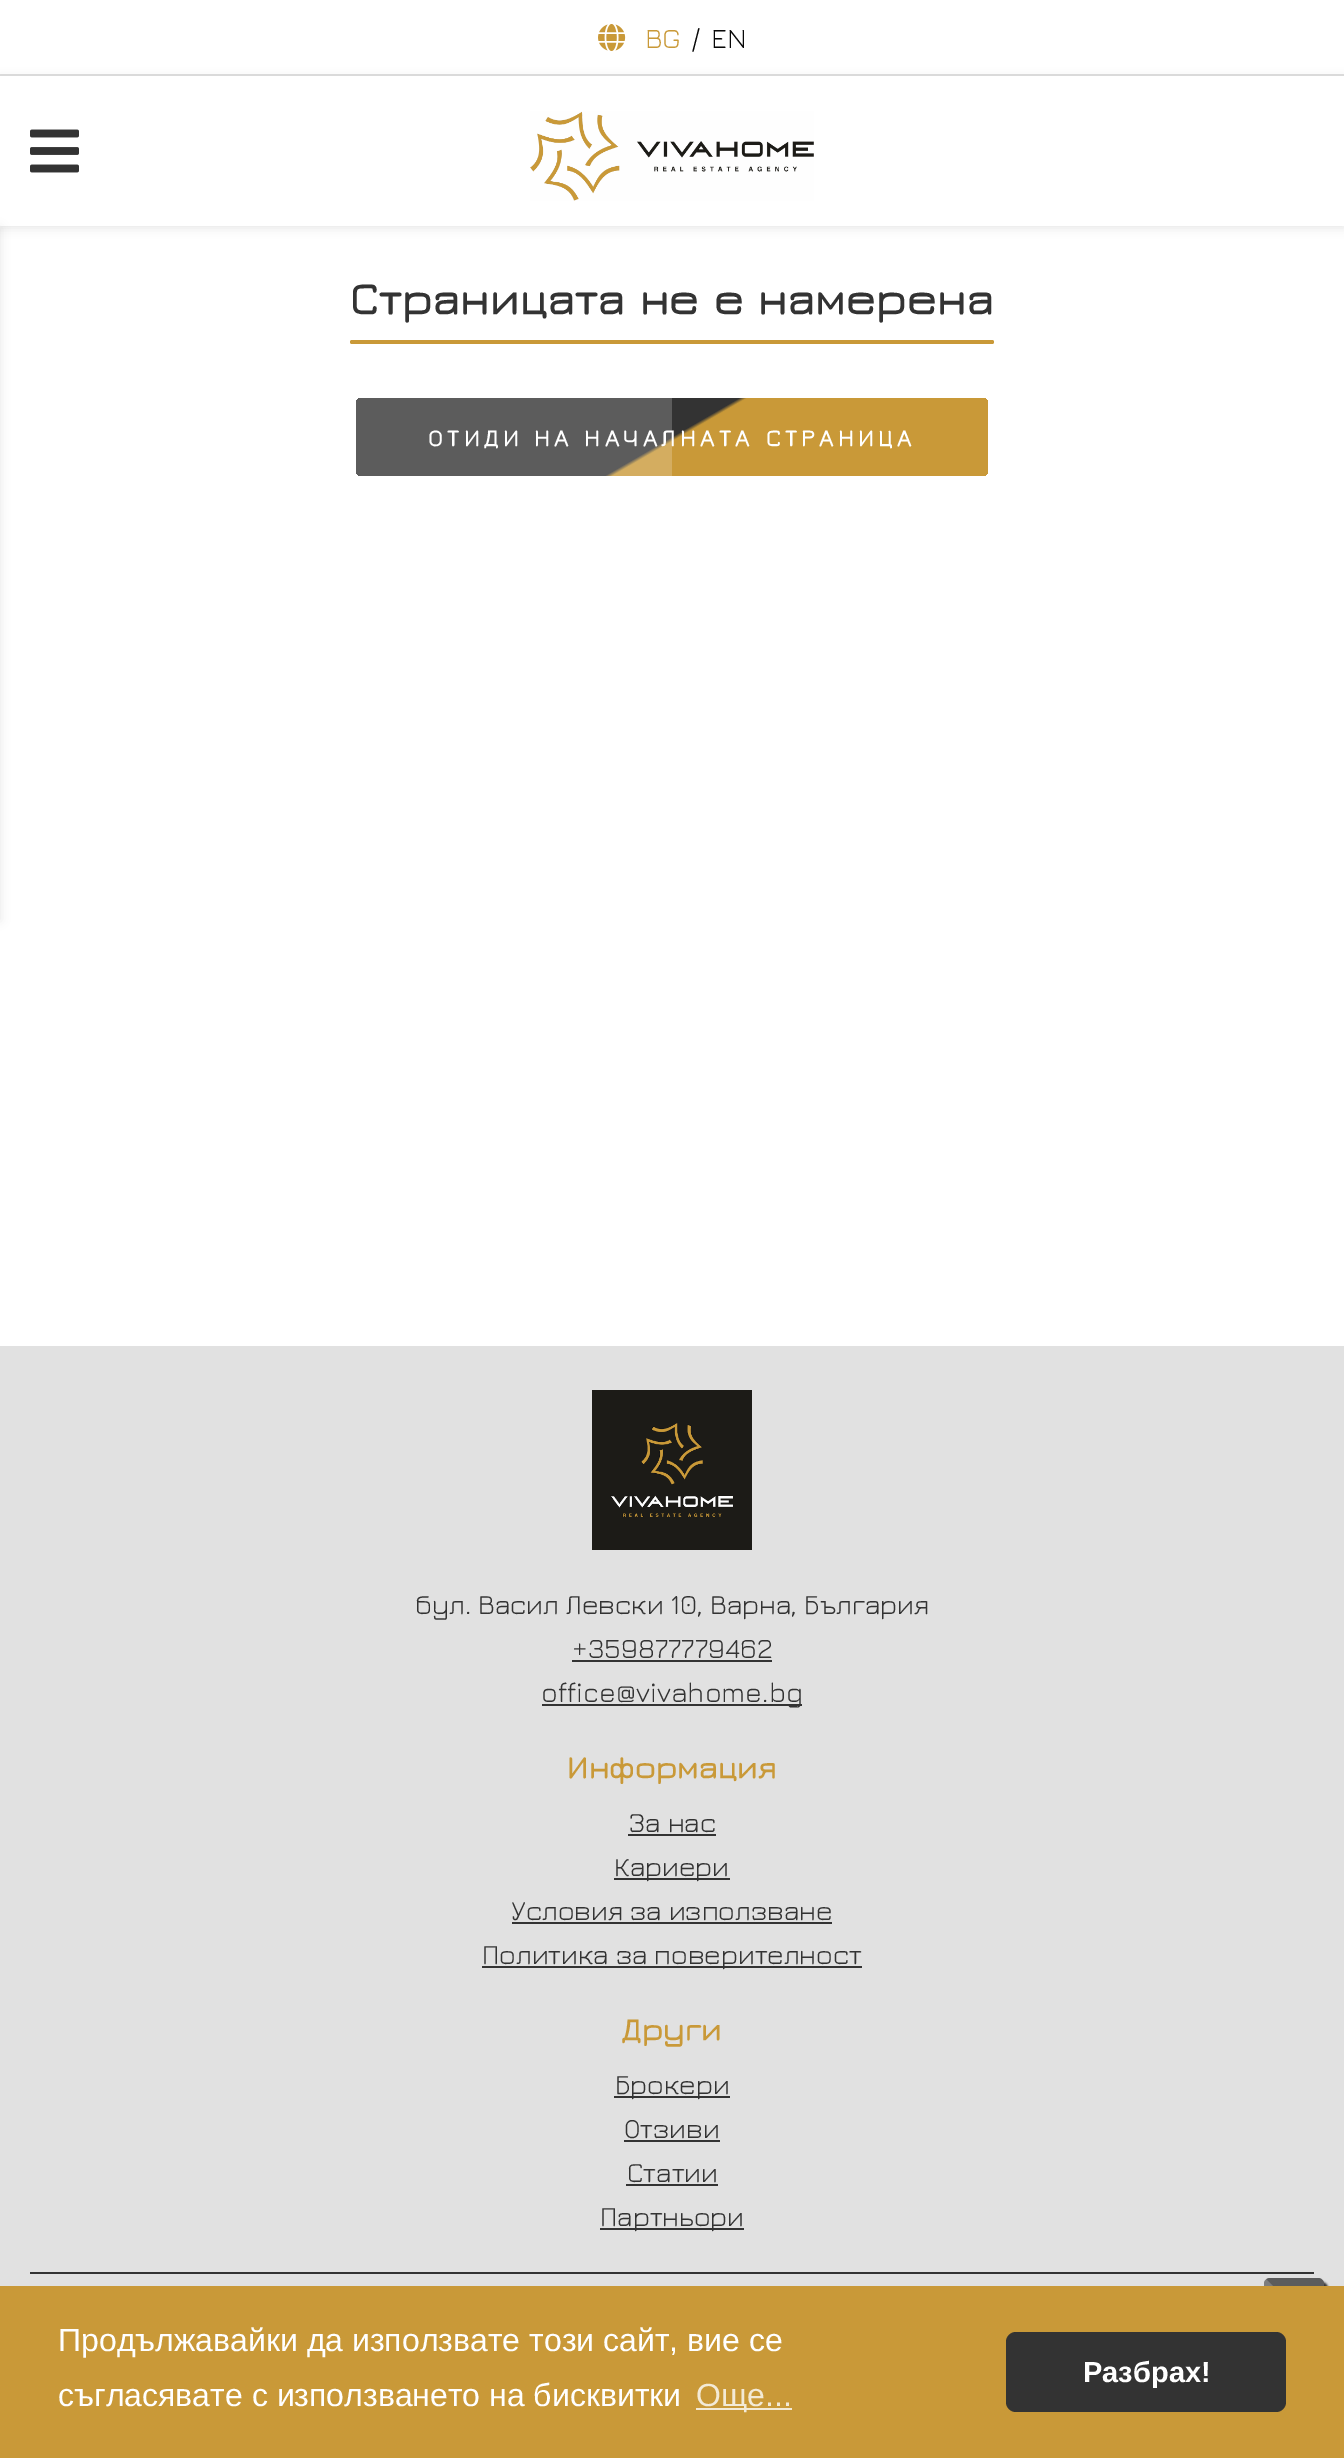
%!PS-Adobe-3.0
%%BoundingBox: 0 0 1344 2458
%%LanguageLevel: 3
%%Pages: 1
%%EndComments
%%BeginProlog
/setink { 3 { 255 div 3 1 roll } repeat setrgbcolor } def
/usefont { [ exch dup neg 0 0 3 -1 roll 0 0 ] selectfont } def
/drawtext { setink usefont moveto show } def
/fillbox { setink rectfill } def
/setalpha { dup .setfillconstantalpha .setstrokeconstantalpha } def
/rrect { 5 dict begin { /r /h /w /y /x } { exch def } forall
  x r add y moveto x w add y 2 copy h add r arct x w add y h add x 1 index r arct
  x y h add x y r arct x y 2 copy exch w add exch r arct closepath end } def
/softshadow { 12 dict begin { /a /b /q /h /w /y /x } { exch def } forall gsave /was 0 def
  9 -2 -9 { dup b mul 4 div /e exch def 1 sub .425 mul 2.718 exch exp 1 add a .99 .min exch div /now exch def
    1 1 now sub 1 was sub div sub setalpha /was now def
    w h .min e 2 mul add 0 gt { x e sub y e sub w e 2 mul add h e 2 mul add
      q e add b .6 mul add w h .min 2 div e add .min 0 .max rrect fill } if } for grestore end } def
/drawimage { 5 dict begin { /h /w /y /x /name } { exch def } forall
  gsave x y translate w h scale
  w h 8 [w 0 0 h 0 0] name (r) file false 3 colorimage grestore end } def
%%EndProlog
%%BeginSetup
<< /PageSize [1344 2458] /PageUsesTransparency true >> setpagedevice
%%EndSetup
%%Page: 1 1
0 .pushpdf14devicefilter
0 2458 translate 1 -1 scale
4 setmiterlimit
0 0 1344 2458 255 255 255 fillbox
0 74 1344 2 225 225 225 fillbox
(assets/img1.rgb) 598 24 28 27 drawimage
(BG) 645 48 /Jura-Regular 28 201 153 56 drawtext
(/) 691 48 /Jura-Regular 28 8 8 8 drawtext
(EN) 711 48 /Jura-Regular 28 8 8 8 drawtext
gsave
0 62 moveto 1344 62 lineto 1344 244 lineto 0 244 lineto closepath 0 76 moveto 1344 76 lineto 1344 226 lineto 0 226 lineto closepath eoclip newpath
0 0 0 setink
0 78 1344 150 0 5 0.1 softshadow
grestore
(assets/img2.rgb) 30 129 49 44 drawimage
(assets/img3.rgb) 530 111 284 90 drawimage
0 0 0 setink
-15 228 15 692 0 5 0.1 softshadow
(Страницата не е намерена) 350 314 /Jura-Bold 46 51 51 51 drawtext
201 153 56 setink
350 340 644 4 2 rrect fill
gsave 356 398 632 78 5 rrect clip newpath
<< /ShadingType 2 /ColorSpace /DeviceRGB /Coords [768 603 576 271] /Extend [true true] /Function << /FunctionType 3 /Domain [0 1] /Functions [<< /FunctionType 2 /Domain [0 1] /C0 [0.788 0.6 0.22] /C1 [0.788 0.6 0.22] /N 1 >> << /FunctionType 2 /Domain [0 1] /C0 [0.788 0.6 0.22] /C1 [0.2 0.2 0.2] /N 1 >> << /FunctionType 2 /Domain [0 1] /C0 [0.2 0.2 0.2] /C1 [0.2 0.2 0.2] /N 1 >>] /Bounds [0.49 0.5] /Encode [0 1 0 1 0 1] >> >> shfill grestore
0.2 setalpha
356 398 316 78 255 255 255 fillbox
/Jura-Bold 24 usefont
1 setalpha
428 446 moveto 4 0 (ОТИДИ НА НАЧАЛНАТА СТРАНИЦА) ashow
0 1346 1344 940 225 225 225 fillbox
(assets/img4.rgb) 592 1390 160 160 drawimage
(бул. Васил Левски 10, Варна, България) 415 1614 /Jura-Regular 28 51 51 51 drawtext
(+359877779462) 572 1658 /Jura-Regular 28 51 51 51 drawtext
572 1660 200 2 51 51 51 fillbox
542 1704 260 2 51 51 51 fillbox
(office@vivahome.bg) 541 1702 /Jura-Regular 28 51 51 51 drawtext
(Информация) 567 1778 /Jura-Bold 32 201 153 56 drawtext
(За нас) 629 1832 /Jura-Regular 28 51 51 51 drawtext
628 1834 88 2 51 51 51 fillbox
614 1878 116 2 51 51 51 fillbox
(Кариери) 614 1876 /Jura-Regular 28 51 51 51 drawtext
(Условия за използване) 511 1920 /Jura-Regular 28 51 51 51 drawtext
512 1922 320 2 51 51 51 fillbox
482 1966 380 2 51 51 51 fillbox
(Политика за поверителност) 482 1964 /Jura-Regular 28 51 51 51 drawtext
(Други) 622 2040 /Jura-Bold 32 201 153 56 drawtext
614 2096 116 2 51 51 51 fillbox
(Брокери) 615 2094 /Jura-Regular 28 51 51 51 drawtext
(Отзиви) 624 2138 /Jura-Regular 28 51 51 51 drawtext
624 2140 96 2 51 51 51 fillbox
(Статии) 627 2182 /Jura-Regular 28 51 51 51 drawtext
626 2184 92 2 51 51 51 fillbox
600 2228 144 2 51 51 51 fillbox
(Партньори) 600 2226 /Jura-Regular 28 51 51 51 drawtext
30 2272 1284 2 51 51 51 fillbox
1268 2282 60 60 6 1 1 softshadow
1264 2278 60 60 6 rrect fill
0.2 setalpha
255 255 255 setink
1264 2278 60 60 6 rrect fill
1266 2279 moveto 1323 2336 lineto 1322 2337 1320 2338 1318 2338 curveto 1270 2338 lineto 1267 2338 1264 2335 1264 2332 curveto 1264 2284 lineto 1264 2282 1265 2280 1266 2279 curveto closepath fill
1 setalpha
0 2286 1344 172 201 153 56 fillbox
(Продължавайки да използвате този сайт, вие се) 58 2351 /LiberationSans-Regular 32 255 255 255 drawtext
(съгласявате с използването на бисквитки) 58 2406 /LiberationSans-Regular 32 255 255 255 drawtext
696 2408 96 2 243 234 214 fillbox
(Още...) 696 2406 /LiberationSans-Regular 32 243 234 214 drawtext
51 51 51 setink
1006 2332 280 80 10 rrect fill
(Разбрах!) 1083 2382 /LiberationSans-Bold 29 255 255 255 drawtext
.poppdf14devicefilter showpage
%%EOF
